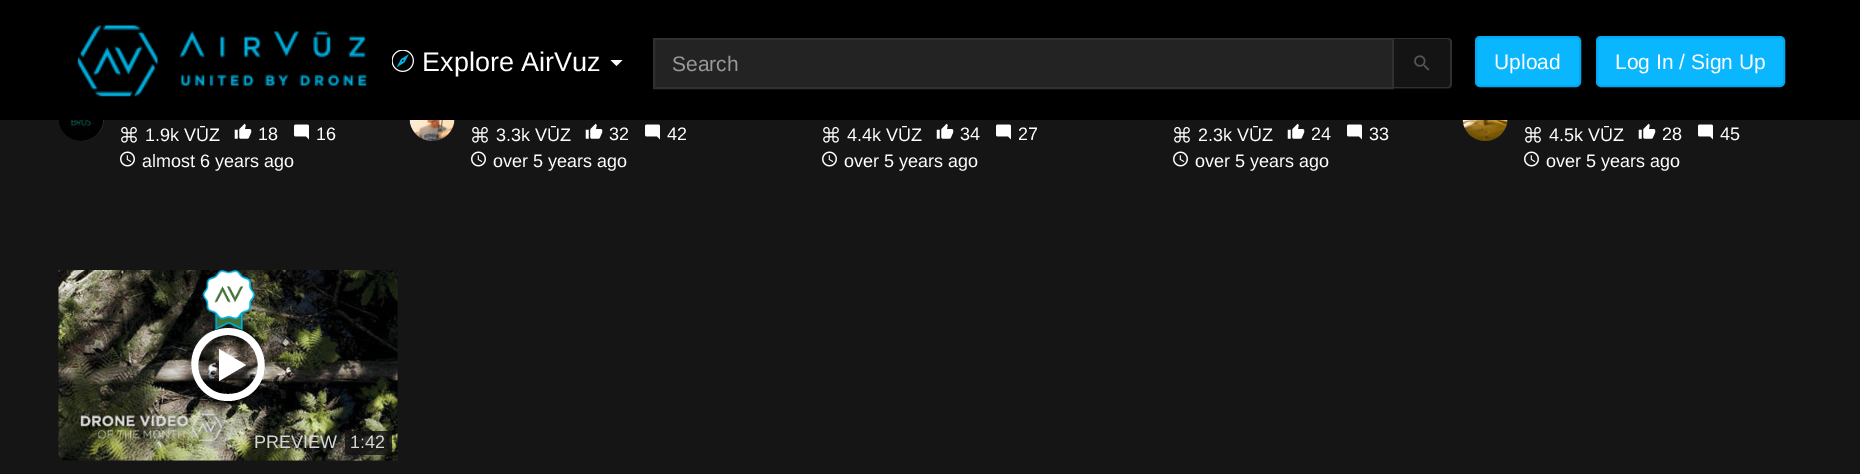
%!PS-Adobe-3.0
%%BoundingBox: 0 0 1860 474
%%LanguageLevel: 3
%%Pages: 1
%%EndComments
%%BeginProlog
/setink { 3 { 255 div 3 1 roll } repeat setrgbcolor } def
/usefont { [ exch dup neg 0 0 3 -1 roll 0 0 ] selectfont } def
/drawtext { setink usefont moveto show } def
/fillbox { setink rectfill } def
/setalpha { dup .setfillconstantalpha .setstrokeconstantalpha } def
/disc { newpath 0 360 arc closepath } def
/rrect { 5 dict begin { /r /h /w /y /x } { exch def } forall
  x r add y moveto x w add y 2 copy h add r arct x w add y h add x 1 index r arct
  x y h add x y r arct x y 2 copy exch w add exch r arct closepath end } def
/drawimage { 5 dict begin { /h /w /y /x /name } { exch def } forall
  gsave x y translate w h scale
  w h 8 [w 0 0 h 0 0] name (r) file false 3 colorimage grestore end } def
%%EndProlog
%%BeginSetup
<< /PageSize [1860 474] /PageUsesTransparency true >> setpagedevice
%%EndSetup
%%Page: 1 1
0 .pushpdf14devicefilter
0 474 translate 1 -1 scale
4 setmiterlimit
0 0 1860 474 21 21 22 fillbox
51 51 51 setink
81.5 118.5 22.5 disc fill
432.5 118.5 22.5 disc fill
1485.5 118.5 22.5 disc fill
0 0 1860 120 0 0 0 fillbox
(assets/img1.rgb) 77 25 290 72 drawimage
(assets/img2.rgb) 392 50 22 22 drawimage
(Explore AirVuz) 422 71 /LiberationSans-Regular 27 255 255 255 drawtext
610.5 60 moveto 622.5 60 lineto 616.5 66 lineto closepath fill
655 41 737 46 35 35 35 fillbox
654 40 738 1 32 32 32 fillbox
48 48 48 setink
2 setlinewidth
654 39 739 49 rectstroke
(Search) 672 71 /LiberationSans-Regular 21 153 153 153 drawtext
20 20 20 setink
1394 38 moveto 1447 38 lineto 1450 38 1452 40 1452 43 curveto 1452 84 lineto 1452 87 1450 89 1447 89 curveto 1394 89 lineto closepath fill
48 48 48 setink
1394 38 moveto 1448 38 lineto 1450 38 1452 40 1452 42 curveto 1452 84 lineto 1452 86 1450 88 1448 88 curveto 1394 88 lineto closepath 1394 39 moveto 1448 39 lineto 1449 39 1450 40 1450 42 curveto 1450 84 lineto 1450 86 1449 87 1448 87 curveto 1394 87 lineto closepath eofill
(assets/img3.rgb) 1414 55 16 16 drawimage
10 183 255 setink
1476 37 104 49 4 rrect gsave fill grestore
0 169 240 setink
stroke
(Upload) 1494 69 /LiberationSans-Regular 21 255 255 255 drawtext
10 183 255 setink
1597 37 187 49 4 rrect gsave fill grestore
0 169 240 setink
stroke
(Log In / Sign Up) 1615 69 /LiberationSans-Regular 21 255 255 255 drawtext
(assets/img4.rgb) 58 120 46 21 drawimage
(assets/img5.rgb) 121 127 16 16 drawimage
(1.9k VŪZ) 145 141 /LiberationSans-Regular 18 255 255 255 drawtext
(assets/img6.rgb) 234 123 18 16 drawimage
(18) 258 140 /LiberationSans-Regular 18 255 255 255 drawtext
(assets/img7.rgb) 294 124 15 16 drawimage
(16) 316 140 /LiberationSans-Regular 18 255 255 255 drawtext
(assets/img8.rgb) 120 151 15 16 drawimage
(almost 6 years ago) 142 167 /LiberationSans-Regular 18 255 255 255 drawtext
(assets/img9.rgb) 409 120 46 21 drawimage
(assets/img5.rgb) 472 127 16 16 drawimage
(3.3k VŪZ) 496 141 /LiberationSans-Regular 18 255 255 255 drawtext
(assets/img6.rgb) 585 123 18 16 drawimage
(32) 609 140 /LiberationSans-Regular 18 255 255 255 drawtext
(assets/img7.rgb) 645 124 15 16 drawimage
(42) 667 140 /LiberationSans-Regular 18 255 255 255 drawtext
(assets/img8.rgb) 471 151 15 16 drawimage
(over 5 years ago) 493 167 /LiberationSans-Regular 18 255 255 255 drawtext
(assets/img5.rgb) 823 127 16 16 drawimage
(4.4k VŪZ) 847 141 /LiberationSans-Regular 18 255 255 255 drawtext
(assets/img6.rgb) 936 123 18 16 drawimage
(34) 960 140 /LiberationSans-Regular 18 255 255 255 drawtext
(assets/img7.rgb) 996 124 15 16 drawimage
(27) 1018 140 /LiberationSans-Regular 18 255 255 255 drawtext
(assets/img8.rgb) 822 151 15 16 drawimage
(over 5 years ago) 844 167 /LiberationSans-Regular 18 255 255 255 drawtext
(assets/img5.rgb) 1174 127 16 16 drawimage
(2.3k VŪZ) 1198 141 /LiberationSans-Regular 18 255 255 255 drawtext
(assets/img6.rgb) 1287 123 18 16 drawimage
(24) 1311 140 /LiberationSans-Regular 18 255 255 255 drawtext
(assets/img7.rgb) 1347 124 15 16 drawimage
(33) 1369 140 /LiberationSans-Regular 18 255 255 255 drawtext
(assets/img8.rgb) 1173 151 15 16 drawimage
(over 5 years ago) 1195 167 /LiberationSans-Regular 18 255 255 255 drawtext
(assets/img10.rgb) 1462 120 46 21 drawimage
(assets/img5.rgb) 1525 127 16 16 drawimage
(4.5k VŪZ) 1549 141 /LiberationSans-Regular 18 255 255 255 drawtext
(assets/img6.rgb) 1638 123 18 16 drawimage
(28) 1662 140 /LiberationSans-Regular 18 255 255 255 drawtext
(assets/img7.rgb) 1698 124 15 16 drawimage
(45) 1720 140 /LiberationSans-Regular 18 255 255 255 drawtext
(assets/img8.rgb) 1524 151 15 16 drawimage
(over 5 years ago) 1546 167 /LiberationSans-Regular 18 255 255 255 drawtext
(assets/img11.rgb) 58 270 340 191 drawimage
228 328 moveto 221 328 214 330 207 334 curveto 178 354 192 401 228 401 curveto 235 401 242 399 249 395 curveto 278 375 264 328 228 328 curveto closepath 228 394 moveto 222 394 216 393 211 389 curveto 187 373 199 335 228 335 curveto 257 335 269 373 245 389 curveto 240 393 234 394 228 394 curveto closepath 219 349 moveto 246 365 lineto 219 381 lineto closepath fill
(assets/img12.rgb) 202 270 53 60 drawimage
(PREVIEW) 254 448 /LiberationSans-Regular 18 214 215 212 drawtext
0.8 setalpha
17 17 17 setink
345 431 47 24 3 rrect fill
1 setalpha
(1:42) 350 448 /LiberationSans-Regular 18 214 215 212 drawtext
.poppdf14devicefilter showpage
%%EOF
